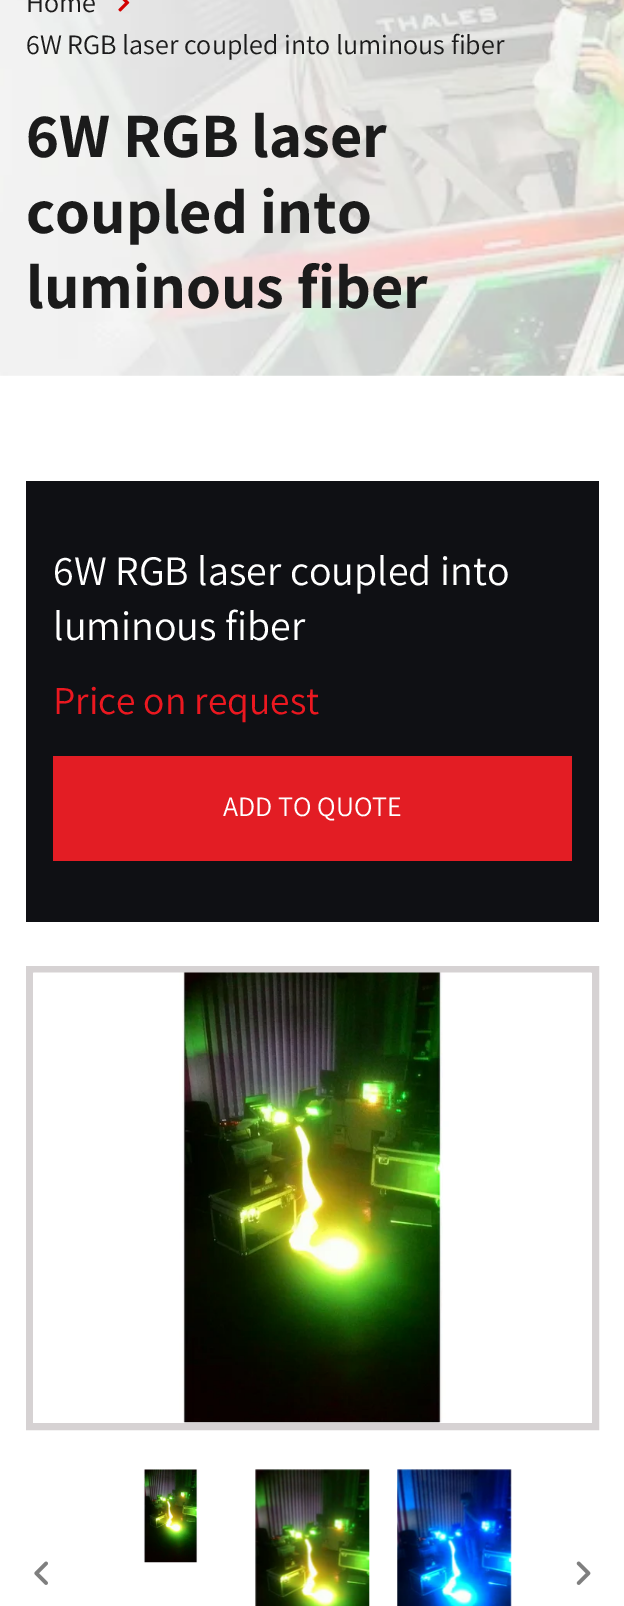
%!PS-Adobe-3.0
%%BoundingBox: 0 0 624 1606
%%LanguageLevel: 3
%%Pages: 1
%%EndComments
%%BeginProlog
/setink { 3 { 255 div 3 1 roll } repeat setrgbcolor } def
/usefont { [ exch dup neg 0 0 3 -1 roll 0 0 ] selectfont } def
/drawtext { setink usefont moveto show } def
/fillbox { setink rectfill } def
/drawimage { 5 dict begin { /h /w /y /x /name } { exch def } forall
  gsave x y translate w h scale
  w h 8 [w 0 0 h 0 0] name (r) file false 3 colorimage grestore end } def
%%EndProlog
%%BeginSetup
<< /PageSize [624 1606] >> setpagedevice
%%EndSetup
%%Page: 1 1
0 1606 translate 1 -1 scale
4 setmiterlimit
0 0 624 1606 255 255 255 fillbox
(assets/img1.rgb) 0 0 624 376 drawimage
(Home) 26 12 /Assistant-Regular 28 27 27 27 drawtext
(assets/img2.rgb) 118 0 12 12 drawimage
(6W RGB laser coupled into luminous fiber) 26 54 /Assistant-Regular 28 27 27 27 drawtext
(6W RGB laser) 26 157 /Assistant-Bold 63 27 27 27 drawtext
(coupled into) 26 233 /Assistant-Bold 63 27 27 27 drawtext
(luminous fiber) 26 308 /Assistant-Bold 63 27 27 27 drawtext
26 481 573 441 15 16 20 fillbox
(6W RGB laser coupled into) 53 585 /Assistant-Regular 42 255 255 255 drawtext
(luminous fiber) 53 640 /Assistant-Regular 42 255 255 255 drawtext
(Price on request) 53 714 /Assistant-Regular 39.5 235 24 32 drawtext
53 756 519 105 227 29 36 fillbox
(ADD TO QUOTE) 223 816 /Assistant-Regular 28 255 255 255 drawtext
214 210 211 setink
7 setlinewidth
29.5 969.5 566 457 rectstroke
(assets/img3.rgb) 33 972 559 451 drawimage
(assets/img4.rgb) 34 1561 14 24 drawimage
(assets/img5.rgb) 143 1469 56 94 drawimage
(assets/img6.rgb) 255 1469 115 137 drawimage
(assets/img7.rgb) 397 1469 115 137 drawimage
(assets/img8.rgb) 576 1561 15 24 drawimage
showpage
%%EOF
